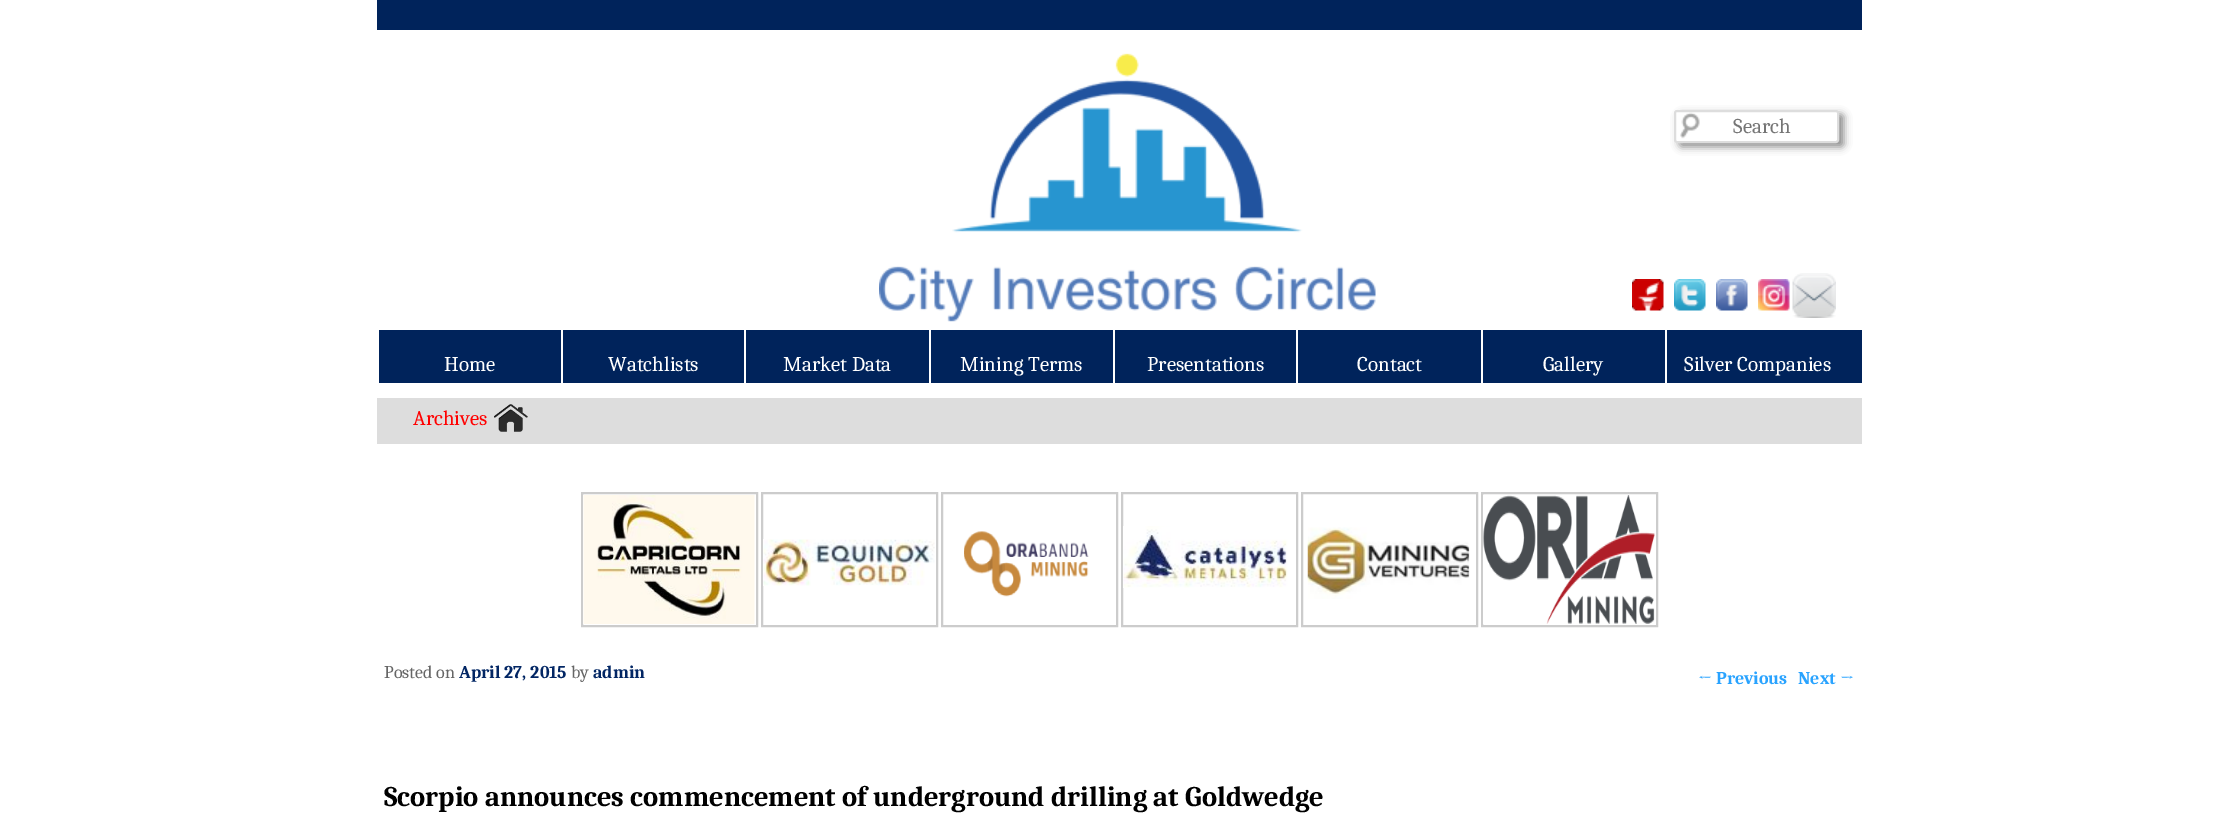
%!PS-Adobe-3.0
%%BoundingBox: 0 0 2237 836
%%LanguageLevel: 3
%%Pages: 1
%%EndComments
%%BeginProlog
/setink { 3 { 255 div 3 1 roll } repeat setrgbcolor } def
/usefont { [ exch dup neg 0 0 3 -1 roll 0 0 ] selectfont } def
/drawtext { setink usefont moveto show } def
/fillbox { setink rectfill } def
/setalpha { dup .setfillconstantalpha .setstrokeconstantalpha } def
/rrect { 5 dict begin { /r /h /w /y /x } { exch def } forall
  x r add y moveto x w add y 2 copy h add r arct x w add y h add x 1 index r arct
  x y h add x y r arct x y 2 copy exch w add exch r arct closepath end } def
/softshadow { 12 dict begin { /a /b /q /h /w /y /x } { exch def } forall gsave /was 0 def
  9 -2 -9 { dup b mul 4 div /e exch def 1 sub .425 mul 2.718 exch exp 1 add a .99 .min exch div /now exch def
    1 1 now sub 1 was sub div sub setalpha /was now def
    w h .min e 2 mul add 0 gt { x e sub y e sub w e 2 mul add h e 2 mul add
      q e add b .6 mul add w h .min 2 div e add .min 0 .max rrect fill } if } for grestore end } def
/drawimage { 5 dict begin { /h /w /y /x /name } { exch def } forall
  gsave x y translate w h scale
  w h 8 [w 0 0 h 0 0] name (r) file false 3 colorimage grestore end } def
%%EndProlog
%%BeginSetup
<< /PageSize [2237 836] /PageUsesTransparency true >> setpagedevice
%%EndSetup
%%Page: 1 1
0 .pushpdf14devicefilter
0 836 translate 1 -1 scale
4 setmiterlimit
0 0 2237 836 255 255 255 fillbox
377 0 1485 30 0 35 91 fillbox
(assets/img1.rgb) 879 53 497 269 drawimage
gsave
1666 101 moveto 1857 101 lineto 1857 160 lineto 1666 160 lineto closepath 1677 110 moveto 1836 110 lineto 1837.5 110 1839 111.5 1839 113 curveto 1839 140 lineto 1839 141.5 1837.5 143 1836 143 curveto 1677 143 lineto 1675.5 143 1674 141.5 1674 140 curveto 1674 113 lineto 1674 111.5 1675.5 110 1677 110 curveto closepath eoclip newpath
140 140 140 setink
1679 114 165 33 3 4 1 softshadow
grestore
(assets/img2.rgb) 1680 112 20 27 drawimage
221 221 221 setink
2 setlinewidth
1675 111 163 31 2 rrect stroke
gsave
1733 114 102 26 rectclip
(Search) 1733 133 /Caladea-Regular 21 117 117 117 drawtext
grestore
(assets/img3.rgb) 1632 279 32 32 drawimage
(assets/img4.rgb) 1674 279 32 32 drawimage
(assets/img5.rgb) 1716 279 32 32 drawimage
(assets/img6.rgb) 1758 279 32 32 drawimage
(assets/img7.rgb) 1792 273 44 45 drawimage
379 330 1483 53 0 35 91 fillbox
(Home) 444 371 /Caladea-Regular 21 255 255 255 drawtext
561 330 2 53 255 255 255 fillbox
(Watchlists) 608 371 /Caladea-Regular 21 255 255 255 drawtext
744 330 2 53 255 255 255 fillbox
(Market Data) 783 371 /Caladea-Regular 21 255 255 255 drawtext
929 330 2 53 255 255 255 fillbox
(Mining Terms) 960 371 /Caladea-Regular 21 255 255 255 drawtext
1113 330 2 53 255 255 255 fillbox
(Presentations) 1147 371 /Caladea-Regular 21 255 255 255 drawtext
1296 330 2 53 255 255 255 fillbox
(Contact) 1357 371 /Caladea-Regular 21 255 255 255 drawtext
1481 330 2 53 255 255 255 fillbox
(Gallery) 1543 371 /Caladea-Regular 21 255 255 255 drawtext
1665 330 2 53 255 255 255 fillbox
(Silver Companies) 1684 371 /Caladea-Regular 21 255 255 255 drawtext
377 398 1485 46 221 221 221 fillbox
(Archives) 413 425 /Caladea-Regular 21 255 0 0 drawtext
(assets/img8.rgb) 494 404 34 28 drawimage
204 204 204 setink
582 493 175 133 rectstroke
(assets/img9.rgb) 583 495 172 129 drawimage
762 493 175 133 rectstroke
(assets/img10.rgb) 763 539 172 47 drawimage
942 493 175 133 rectstroke
(assets/img11.rgb) 964 531 125 66 drawimage
1122 493 175 133 rectstroke
(assets/img12.rgb) 1123 526 165 62 drawimage
1302 493 175 133 rectstroke
(assets/img13.rgb) 1307 527 163 72 drawimage
1482 493 175 133 rectstroke
(assets/img14.rgb) 1483 495 172 129 drawimage
(Posted on) 384 678 /Caladea-Regular 18 102 102 102 drawtext
(April 27, 2015) 459 678 /Caladea-Bold 18 2 38 100 drawtext
(by) 571 678 /Caladea-Regular 18 102 102 102 drawtext
(admin) 593 678 /Caladea-Bold 18 2 38 100 drawtext
(Scorpio announces commencement of underground drilling at Goldwedge) 384 806 /Caladea-Bold 28.5 0 0 0 drawtext
(←) 1698 684 /Caladea-Regular 18 41 163 255 drawtext
(Previous) 1716 684 /Caladea-Bold 18 41 163 255 drawtext
(Next) 1798 684 /Caladea-Bold 18 41 163 255 drawtext
(→) 1840 684 /Caladea-Regular 18 41 163 255 drawtext
.poppdf14devicefilter showpage
%%EOF
